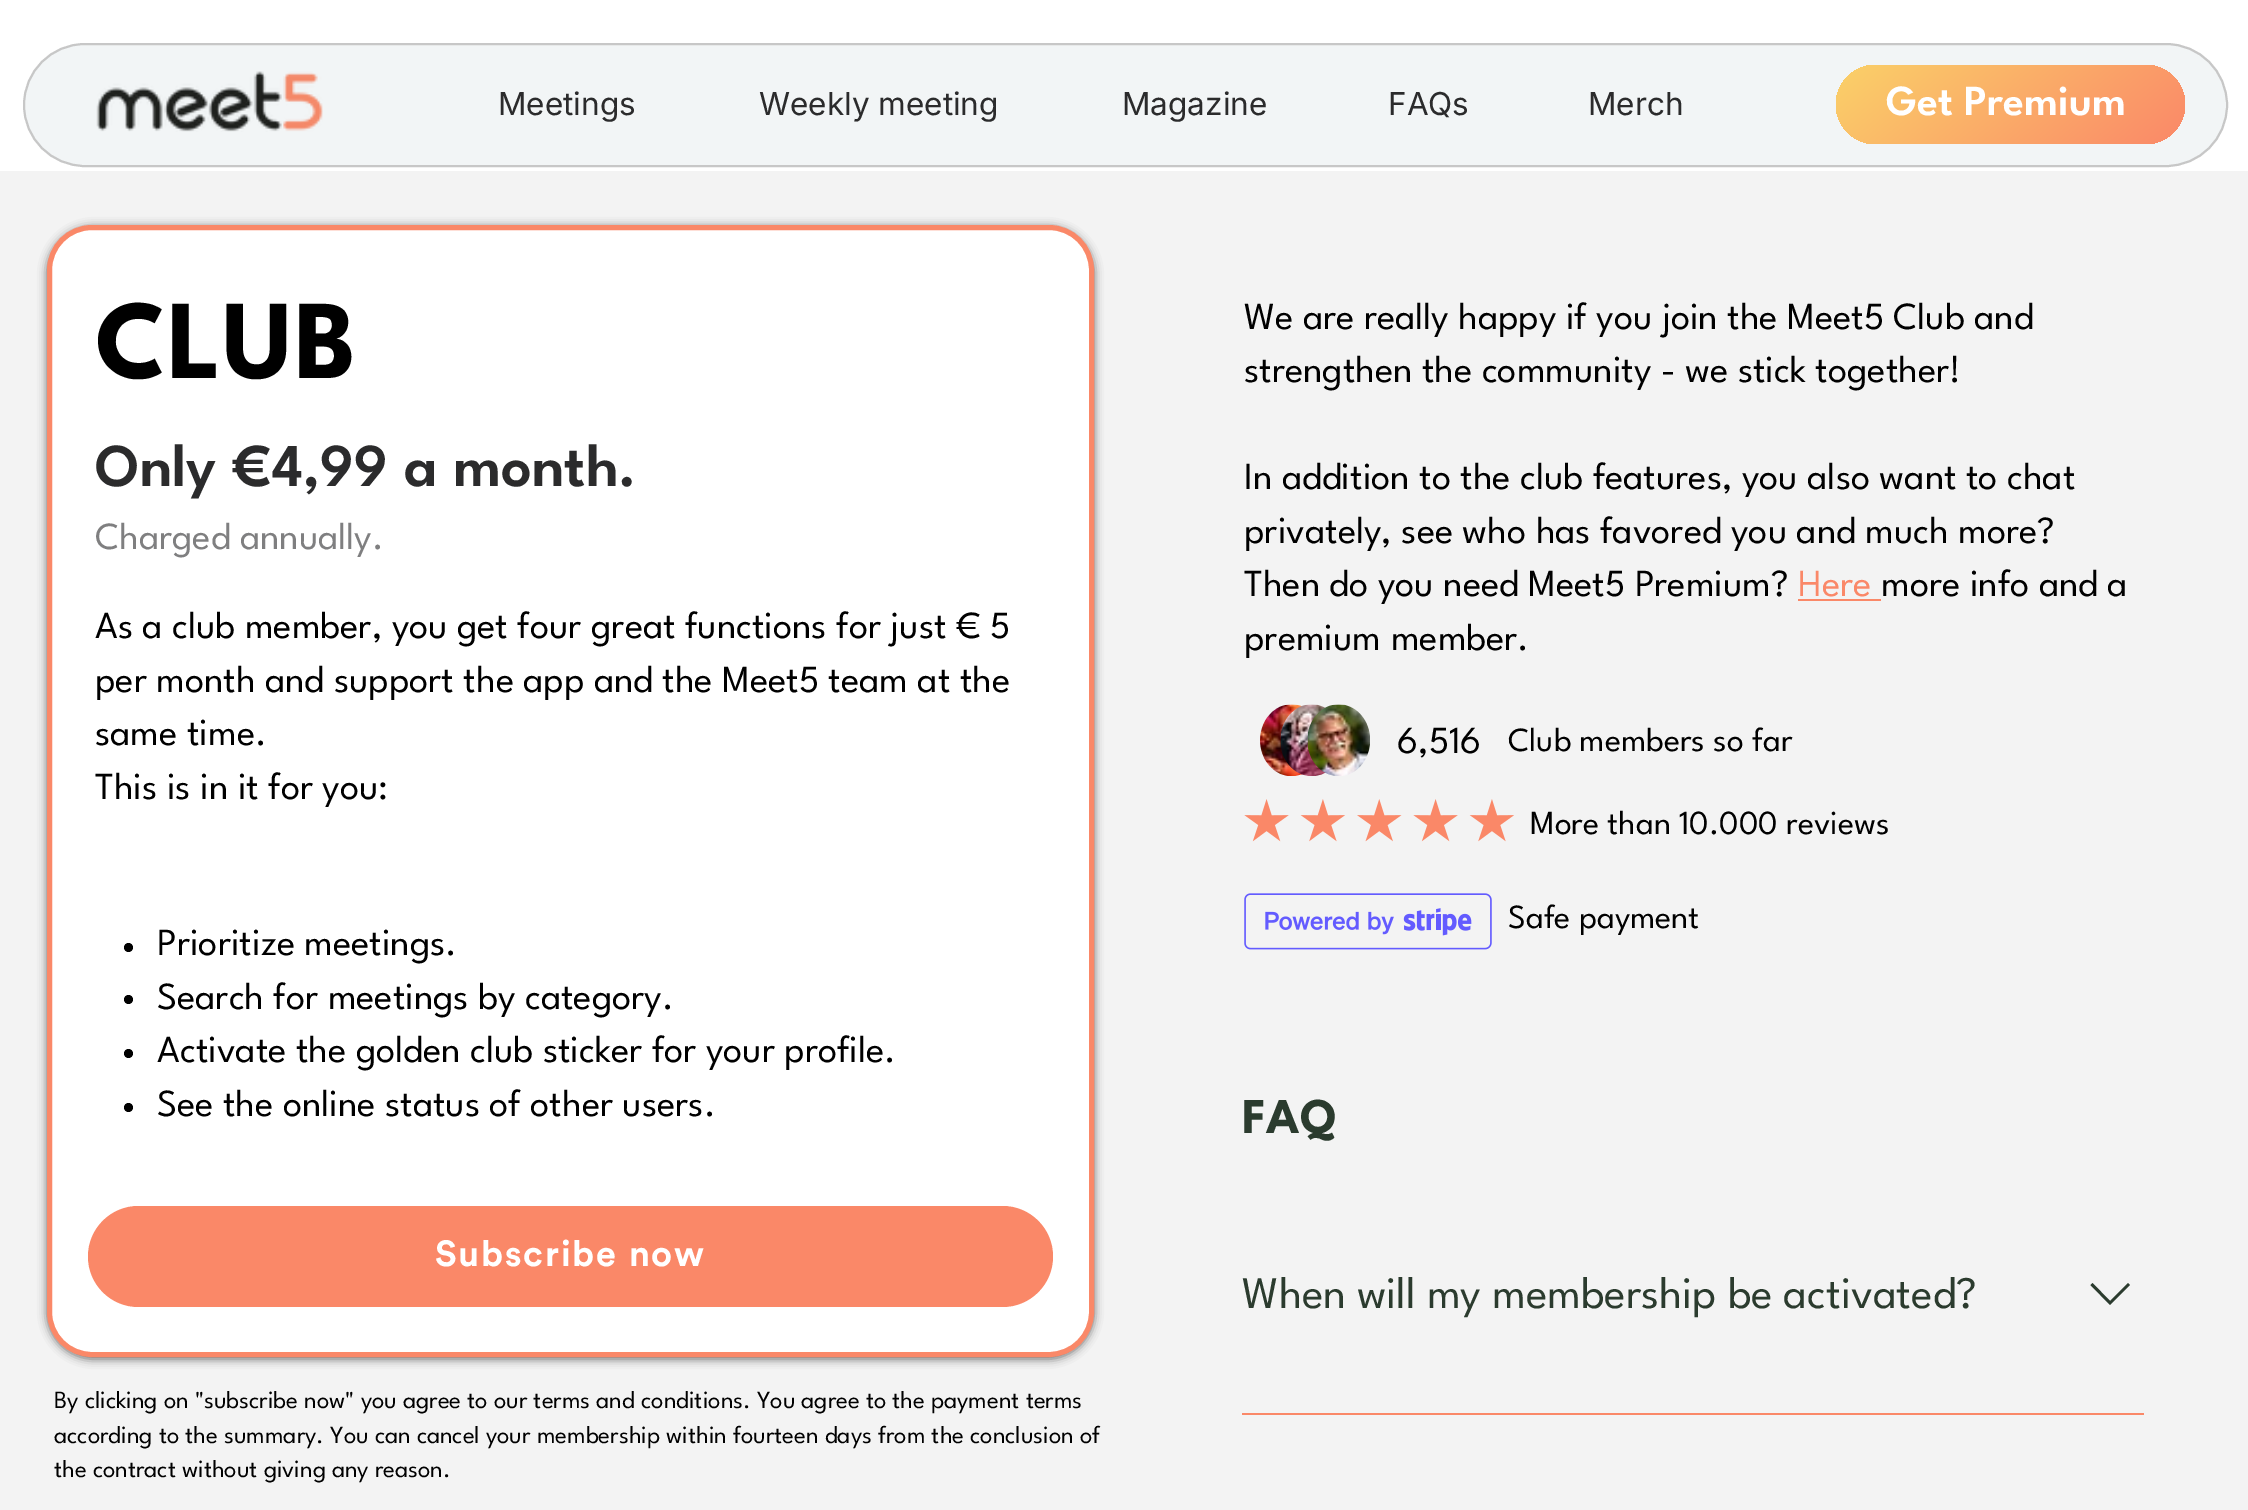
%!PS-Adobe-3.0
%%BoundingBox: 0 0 2248 1510
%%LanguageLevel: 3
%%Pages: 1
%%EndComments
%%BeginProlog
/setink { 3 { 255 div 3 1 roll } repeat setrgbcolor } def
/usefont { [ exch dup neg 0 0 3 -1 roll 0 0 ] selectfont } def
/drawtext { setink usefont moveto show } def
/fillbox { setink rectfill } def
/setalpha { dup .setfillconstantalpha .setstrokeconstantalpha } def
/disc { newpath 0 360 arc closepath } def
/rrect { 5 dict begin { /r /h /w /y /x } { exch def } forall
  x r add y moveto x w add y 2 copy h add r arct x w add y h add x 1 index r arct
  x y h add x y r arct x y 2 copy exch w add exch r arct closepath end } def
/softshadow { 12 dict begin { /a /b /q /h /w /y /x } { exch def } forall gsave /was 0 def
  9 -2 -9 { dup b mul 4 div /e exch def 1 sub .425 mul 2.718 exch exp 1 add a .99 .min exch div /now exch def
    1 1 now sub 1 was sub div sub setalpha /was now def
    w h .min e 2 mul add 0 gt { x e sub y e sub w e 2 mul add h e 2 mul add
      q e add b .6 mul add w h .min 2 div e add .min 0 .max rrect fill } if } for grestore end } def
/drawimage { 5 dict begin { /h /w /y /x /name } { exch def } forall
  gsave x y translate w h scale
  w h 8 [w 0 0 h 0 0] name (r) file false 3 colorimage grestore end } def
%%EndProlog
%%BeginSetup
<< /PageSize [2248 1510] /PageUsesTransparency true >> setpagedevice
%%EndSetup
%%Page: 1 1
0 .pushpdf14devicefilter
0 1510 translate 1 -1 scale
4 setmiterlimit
0 0 2248 1510 255 255 255 fillbox
242 245 246 setink
24 44 2203 122 61 rrect gsave fill grestore
199 199 199 setink
2 setlinewidth
stroke
(assets/img1.rgb) 96 71 227 61 drawimage
(Meetings) 498 115 /Inter-Regular 31.5 43 43 44 drawtext
(Weekly meeting) 759 115 /Inter-Regular 31.5 43 43 44 drawtext
(Magazine) 1122 115 /Inter-Regular 31.5 43 43 44 drawtext
(FAQs) 1388 115 /Inter-Regular 31.5 43 43 44 drawtext
(Merch) 1588 115 /Inter-Regular 31.5 43 43 44 drawtext
gsave 1836 65 349 79 39.5 rrect clip newpath
<< /ShadingType 2 /ColorSpace /DeviceRGB /Coords [1919 -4.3 2102 214] /Extend [true true] /Function << /FunctionType 2 /Domain [0 1] /C0 [0.98 0.82 0.408] /C1 [0.98 0.533 0.408] /N 1 >> >> shfill grestore
(Get Premium) 1886 115 /LeagueSpartan-SemiBold 42.75 255 255 255 drawtext
0 171 2248 1339 243 243 243 fillbox
0 0 0 setink
47 227 1047 1132 45 4.5 0.57 softshadow
255 255 255 setink
49.5 227.5 1042 1127 42.5 rrect gsave fill grestore
250 136 104 setink
5 setlinewidth
stroke
(CLUB) 95 378 /LeagueSpartan-Bold 112.5 0 0 0 drawtext
(Only €4,99 a month.) 95 486 /LeagueSpartan-SemiBold 60.75 43 43 44 drawtext
(Charged annually.) 95 549 /LeagueSpartan-Regular 38.25 127 127 128 drawtext
(As a club member, you get four great functions for just € 5) 95 638 /LeagueSpartan-Regular 38.25 0 0 0 drawtext
(per month and support the app and the Meet5 team at the) 95 692 /LeagueSpartan-Regular 38.25 0 0 0 drawtext
(same time.) 95 745 /LeagueSpartan-Regular 38.25 0 0 0 drawtext
(This is in it for you:) 95 799 /LeagueSpartan-Regular 38.25 0 0 0 drawtext
128.5 947.5 4.5 disc fill
(Prioritize meetings.) 157 955 /LeagueSpartan-Regular 38.25 0 0 0 drawtext
128.5 999.5 4.5 disc fill
(Search for meetings by category.) 157 1009 /LeagueSpartan-Regular 38.25 0 0 0 drawtext
128.5 1053.5 4.5 disc fill
(Activate the golden club sticker for your profile.) 157 1062 /LeagueSpartan-Regular 38.25 0 0 0 drawtext
128.5 1107.5 4.5 disc fill
(See the online status of other users.) 157 1116 /LeagueSpartan-Regular 38.25 0 0 0 drawtext
250 136 104 setink
88 1206 965 101 50.5 rrect fill
/Circular-Bold 36 usefont
255 255 255 setink
435 1266 moveto 1.75 0 (Subscribe now) ashow
(We are really happy if you join the Meet5 Club and) 1244 329 /LeagueSpartan-Regular 38.25 0 0 0 drawtext
(strengthen the community - we stick together!) 1244 382 /LeagueSpartan-Regular 38.25 0 0 0 drawtext
(In addition to the club features, you also want to chat) 1244 489 /LeagueSpartan-Regular 38.25 0 0 0 drawtext
(privately, see who has favored you and much more?) 1244 543 /LeagueSpartan-Regular 38.25 0 0 0 drawtext
(Then do you need Meet5 Premium?) 1244 596 /LeagueSpartan-Regular 38.25 0 0 0 drawtext
(Here) 1798 596 /LeagueSpartan-Regular 38.25 250 136 104 drawtext
1798 599 83 2 250 136 104 fillbox
(more info and a) 1881 596 /LeagueSpartan-Regular 38.25 0 0 0 drawtext
(premium member.) 1244 650 /LeagueSpartan-Regular 38.25 0 0 0 drawtext
(assets/img2.rgb) 1260 704 43 72 drawimage
(assets/img3.rgb) 1280 704 46 72 drawimage
(assets/img4.rgb) 1307 704 63 72 drawimage
(6,516) 1397 753 /LeagueSpartan-Regular 38.25 0 0 0 drawtext
(Club members so far) 1508 751 /LeagueSpartan-Regular 33.75 0 0 0 drawtext
(assets/img5.rgb) 1244 799 270 43 drawimage
(More than 10.000 reviews) 1530 834 /LeagueSpartan-Regular 33.75 0 0 0 drawtext
(assets/img6.rgb) 1244 893 248 57 drawimage
(Safe payment) 1508 928 /LeagueSpartan-Regular 33.75 0 0 0 drawtext
(FAQ) 1242 1133 /LeagueSpartan-Bold 50 43 59 46 drawtext
(When will my membership be activated?) 1242 1308 /LeagueSpartan-Regular 45 43 59 46 drawtext
2128 1283 moveto 2130 1285 lineto 2110 1305 lineto 2090.5 1285 lineto 2092.5 1283 lineto 2110 1301 lineto closepath eofill
1242 1413 902 2 250 136 104 fillbox
(By clicking on "subscribe now" you agree to our terms and conditions. You agree to the payment terms) 54 1408 /LeagueSpartan-Regular 24.75 0 0 0 drawtext
(according to the summary. You can cancel your membership within fourteen days from the conclusion of) 54 1443 /LeagueSpartan-Regular 24.75 0 0 0 drawtext
(the contract without giving any reason.) 54 1477 /LeagueSpartan-Regular 24.75 0 0 0 drawtext
.poppdf14devicefilter showpage
%%EOF
